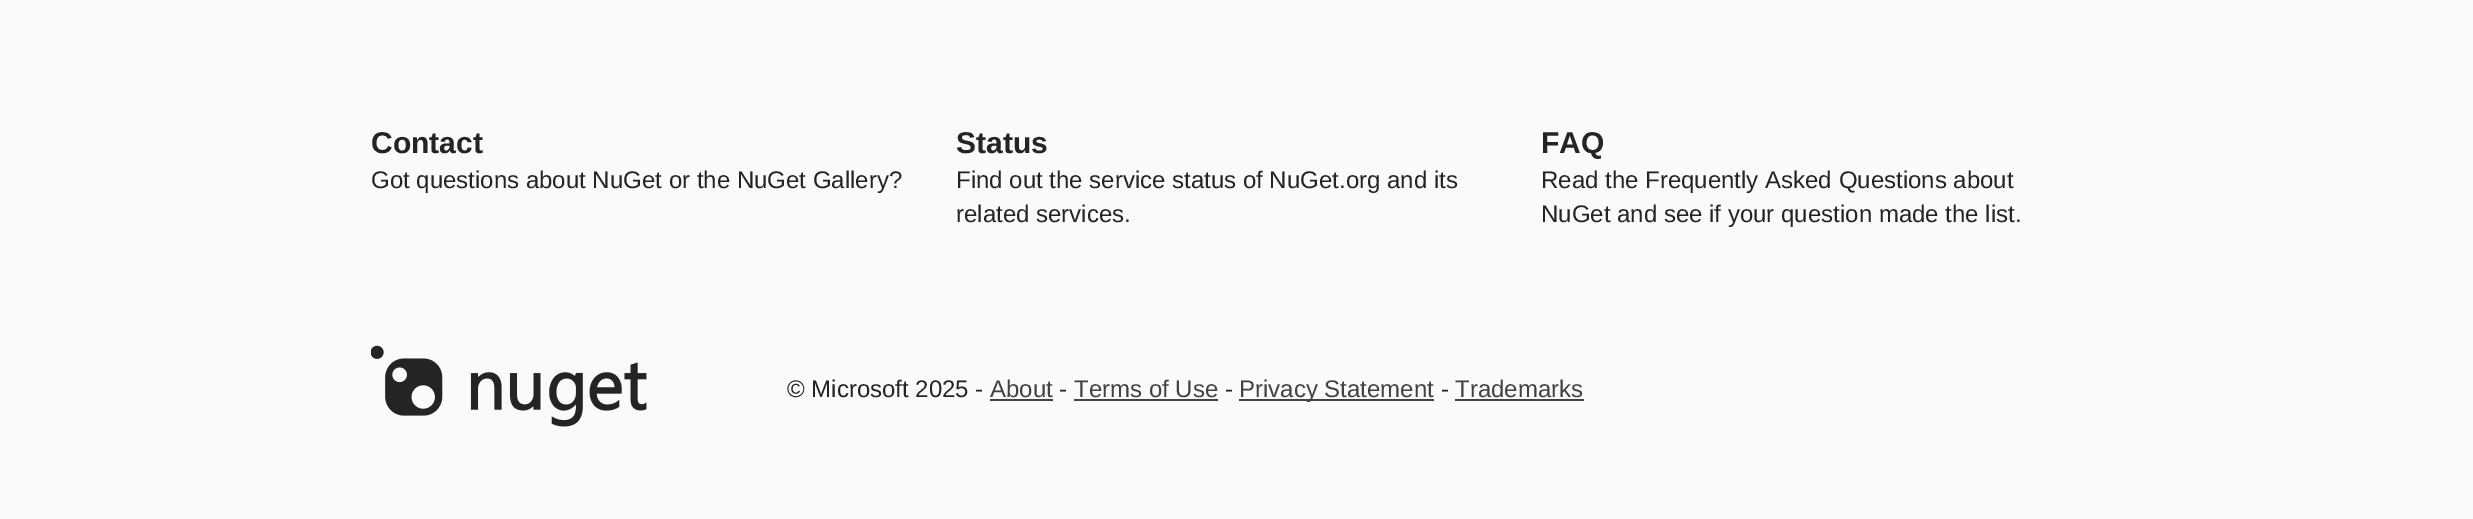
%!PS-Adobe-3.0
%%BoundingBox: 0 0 2473 519
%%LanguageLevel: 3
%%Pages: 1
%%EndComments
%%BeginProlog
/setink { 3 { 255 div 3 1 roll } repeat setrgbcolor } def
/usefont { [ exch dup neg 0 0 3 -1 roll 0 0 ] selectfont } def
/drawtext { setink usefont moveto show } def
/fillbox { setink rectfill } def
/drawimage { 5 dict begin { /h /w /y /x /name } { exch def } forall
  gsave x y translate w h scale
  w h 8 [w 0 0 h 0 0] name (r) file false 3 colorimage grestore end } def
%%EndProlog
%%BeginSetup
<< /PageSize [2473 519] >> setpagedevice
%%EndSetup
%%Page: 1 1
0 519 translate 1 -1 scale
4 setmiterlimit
0 0 2473 519 250 250 250 fillbox
(Contact) 371 153 /LiberationSans-Bold 30 36 36 36 drawtext
(Got questions about NuGet or the NuGet Gallery?) 371 188 /LiberationSans-Regular 24 36 36 36 drawtext
(Status) 956 153 /LiberationSans-Bold 30 36 36 36 drawtext
(Find out the service status of NuGet.org and its) 956 188 /LiberationSans-Regular 24 36 36 36 drawtext
(related services.) 956 222 /LiberationSans-Regular 24 36 36 36 drawtext
(FAQ) 1541 153 /LiberationSans-Bold 30 36 36 36 drawtext
(Read the Frequently Asked Questions about) 1541 188 /LiberationSans-Regular 24 36 36 36 drawtext
(NuGet and see if your question made the list.) 1541 222 /LiberationSans-Regular 24 36 36 36 drawtext
(assets/img1.rgb) 371 345 276 82 drawimage
(© Microsoft 2025 -) 787 397 /LiberationSans-Regular 24 36 36 36 drawtext
(About) 990 397 /LiberationSans-Regular 24 66 66 66 drawtext
990 399 63 2 66 66 66 fillbox
(-) 1059 397 /LiberationSans-Regular 24 36 36 36 drawtext
(Terms of Use) 1074 397 /LiberationSans-Regular 24 66 66 66 drawtext
1074 399 144 2 66 66 66 fillbox
(-) 1225 397 /LiberationSans-Regular 24 36 36 36 drawtext
1239 399 195 2 66 66 66 fillbox
(Privacy Statement) 1239 397 /LiberationSans-Regular 24 66 66 66 drawtext
(-) 1441 397 /LiberationSans-Regular 24 36 36 36 drawtext
(Trademarks) 1455 397 /LiberationSans-Regular 24 66 66 66 drawtext
1455 399 129 2 66 66 66 fillbox
showpage
%%EOF
